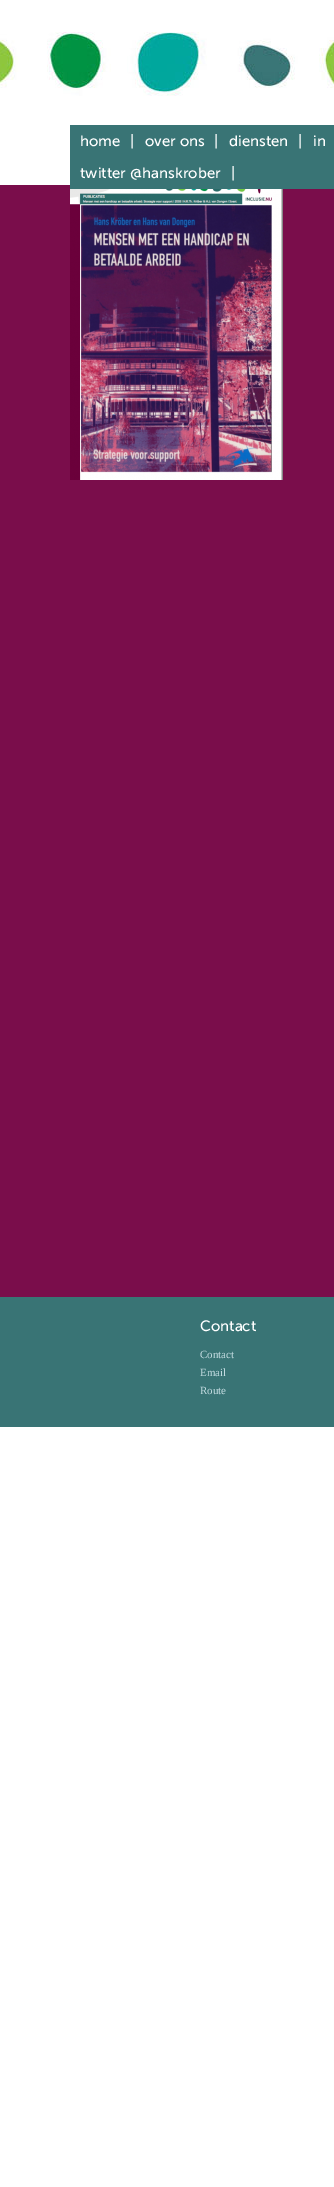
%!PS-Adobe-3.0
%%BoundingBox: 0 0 334 2187
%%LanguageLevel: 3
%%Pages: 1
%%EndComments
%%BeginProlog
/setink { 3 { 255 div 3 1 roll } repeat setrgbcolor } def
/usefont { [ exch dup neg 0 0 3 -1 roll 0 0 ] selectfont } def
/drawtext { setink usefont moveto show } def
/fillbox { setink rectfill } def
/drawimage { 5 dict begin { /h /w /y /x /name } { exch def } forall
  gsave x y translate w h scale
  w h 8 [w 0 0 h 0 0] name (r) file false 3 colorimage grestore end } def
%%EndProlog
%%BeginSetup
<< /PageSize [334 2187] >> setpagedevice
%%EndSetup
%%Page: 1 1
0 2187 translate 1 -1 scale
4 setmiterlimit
0 0 334 2187 255 255 255 fillbox
0 185 334 1112 122 13 75 fillbox
(assets/img1.rgb) 0 32 334 64 drawimage
70 125 264 64 57 116 117 fillbox
(home) 80 146 /MuseoSans-Regular 15 255 255 255 drawtext
(|) 130 146 /MuseoSans-Regular 15 255 255 255 drawtext
(over ons) 145 146 /MuseoSans-Regular 15 255 255 255 drawtext
(|) 214 146 /MuseoSans-Regular 15 255 255 255 drawtext
(diensten) 229 146 /MuseoSans-Regular 15 255 255 255 drawtext
(|) 298 146 /MuseoSans-Regular 15 255 255 255 drawtext
(in) 313 146 /MuseoSans-Regular 15 255 255 255 drawtext
(twitter @hanskrober) 80 178 /MuseoSans-Regular 15 255 255 255 drawtext
(|) 231 178 /MuseoSans-Regular 15 255 255 255 drawtext
(assets/img2.rgb) 70 189 213 291 drawimage
0 1297 334 130 57 116 117 fillbox
(Contact) 200 1331 /MuseoSans-Regular 15 255 255 255 drawtext
(Contact) 200 1358 /LiberationSerif-Regular 11 194 219 224 drawtext
(Email) 200 1376 /LiberationSerif-Regular 11 194 219 224 drawtext
(Route) 200 1394 /LiberationSerif-Regular 11 194 219 224 drawtext
showpage
%%EOF
